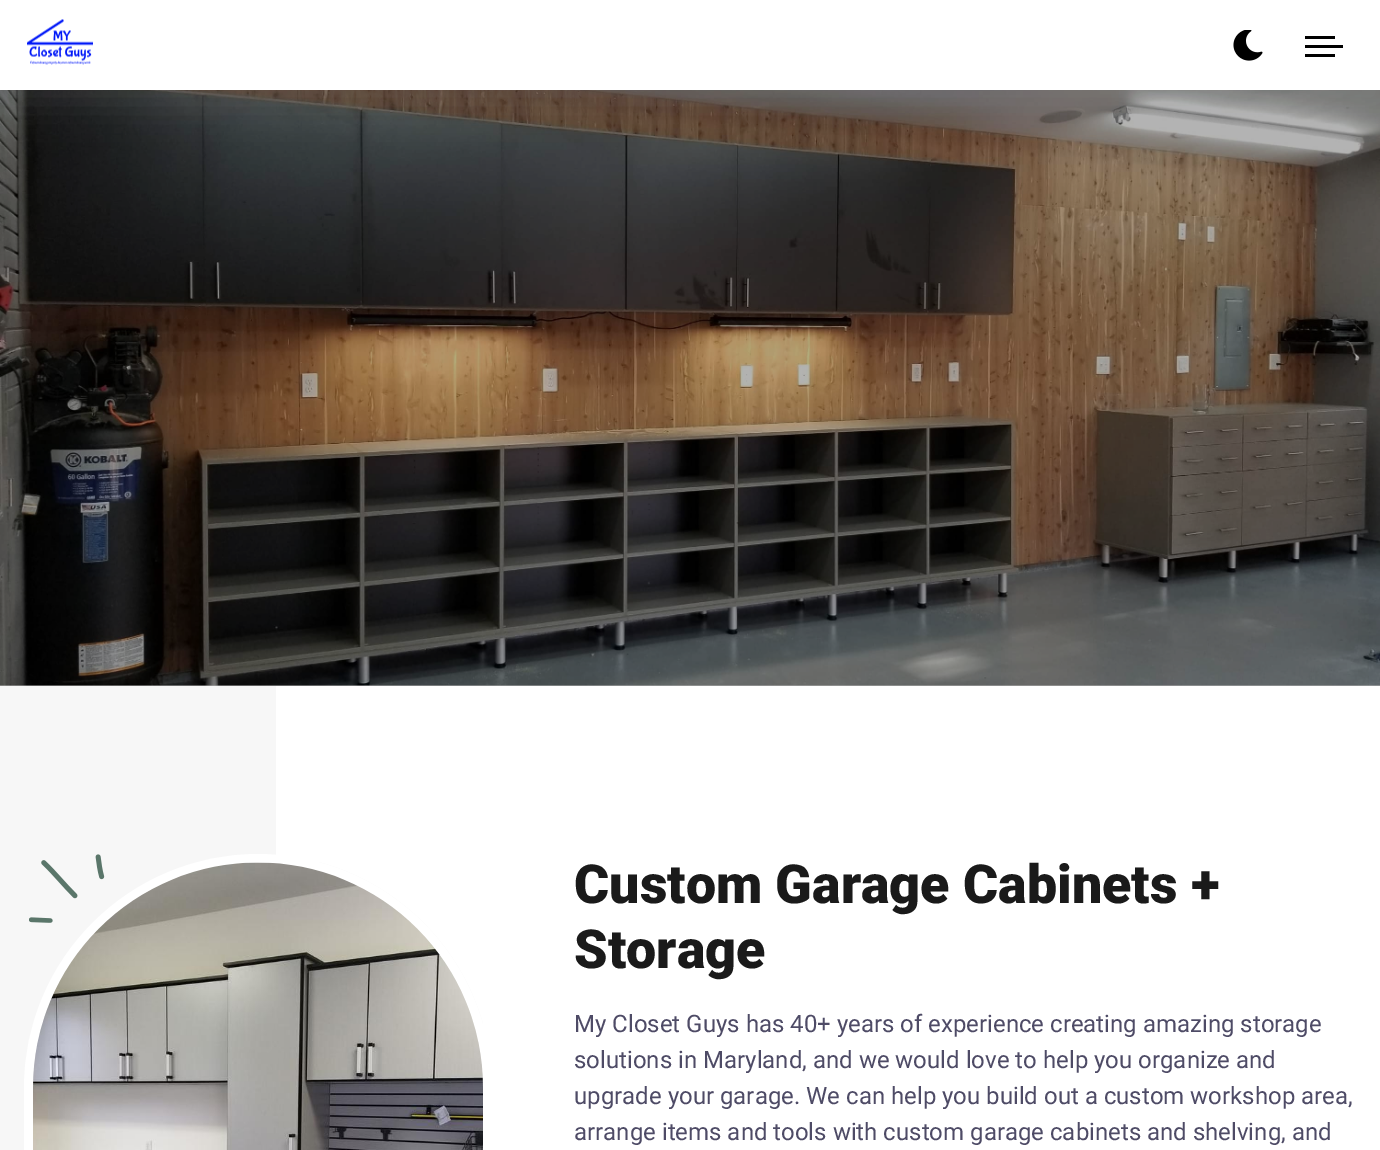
%!PS-Adobe-3.0
%%BoundingBox: 0 0 1380 1150
%%LanguageLevel: 3
%%Pages: 1
%%EndComments
%%BeginProlog
/setink { 3 { 255 div 3 1 roll } repeat setrgbcolor } def
/usefont { [ exch dup neg 0 0 3 -1 roll 0 0 ] selectfont } def
/drawtext { setink usefont moveto show } def
/fillbox { setink rectfill } def
/setalpha { dup .setfillconstantalpha .setstrokeconstantalpha } def
/rrect { 5 dict begin { /r /h /w /y /x } { exch def } forall
  x r add y moveto x w add y 2 copy h add r arct x w add y h add x 1 index r arct
  x y h add x y r arct x y 2 copy exch w add exch r arct closepath end } def
/softshadow { 12 dict begin { /a /b /q /h /w /y /x } { exch def } forall gsave /was 0 def
  9 -2 -9 { dup b mul 4 div /e exch def 1 sub .425 mul 2.718 exch exp 1 add a .99 .min exch div /now exch def
    1 1 now sub 1 was sub div sub setalpha /was now def
    w h .min e 2 mul add 0 gt { x e sub y e sub w e 2 mul add h e 2 mul add
      q e add b .6 mul add w h .min 2 div e add .min 0 .max rrect fill } if } for grestore end } def
/drawimage { 5 dict begin { /h /w /y /x /name } { exch def } forall
  gsave x y translate w h scale
  w h 8 [w 0 0 h 0 0] name (r) file false 3 colorimage grestore end } def
%%EndProlog
%%BeginSetup
<< /PageSize [1380 1150] /PageUsesTransparency true >> setpagedevice
%%EndSetup
%%Page: 1 1
0 .pushpdf14devicefilter
0 1150 translate 1 -1 scale
4 setmiterlimit
0 0 1380 1150 255 255 255 fillbox
0 685 1380 1 179 179 179 fillbox
(assets/img3.rgb) 0 90 1380 596 drawimage
149 157 165 setink
0 12 1380 90 0 18 0.2 softshadow
0 0 1380 90 255 255 255 fillbox
(assets/img1.rgb) 27 19 66 46 drawimage
(assets/img2.rgb) 1233 30 30 31 drawimage
1305 45 38 3 0 0 0 fillbox
1305 36 30 3 0 0 0 fillbox
1305 54 30 3 0 0 0 fillbox
0 686 276 464 247 247 247 fillbox
255 255 255 setink
9 setlinewidth
28.5 858.5 459 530 229.5 rrect stroke
(assets/img4.rgb) 33 862 450 288 drawimage
(assets/img5.rgb) 29 854 76 69 drawimage
(Custom Garage Cabinets +) 574 903 /Roboto-Black 53.75 26 26 26 drawtext
(Storage) 574 968 /Roboto-Black 53.75 26 26 26 drawtext
(My Closet Guys has 40+ years of experience creating amazing storage) 574 1032 /Roboto-Regular 24 78 75 102 drawtext
(solutions in Maryland, and we would love to help you organize and) 574 1068 /Roboto-Regular 24 78 75 102 drawtext
(upgrade your garage. We can help you build out a custom workshop area,) 574 1104 /Roboto-Regular 24 78 75 102 drawtext
(arrange items and tools with custom garage cabinets and shelving, and) 574 1140 /Roboto-Regular 24 78 75 102 drawtext
.poppdf14devicefilter showpage
%%EOF
